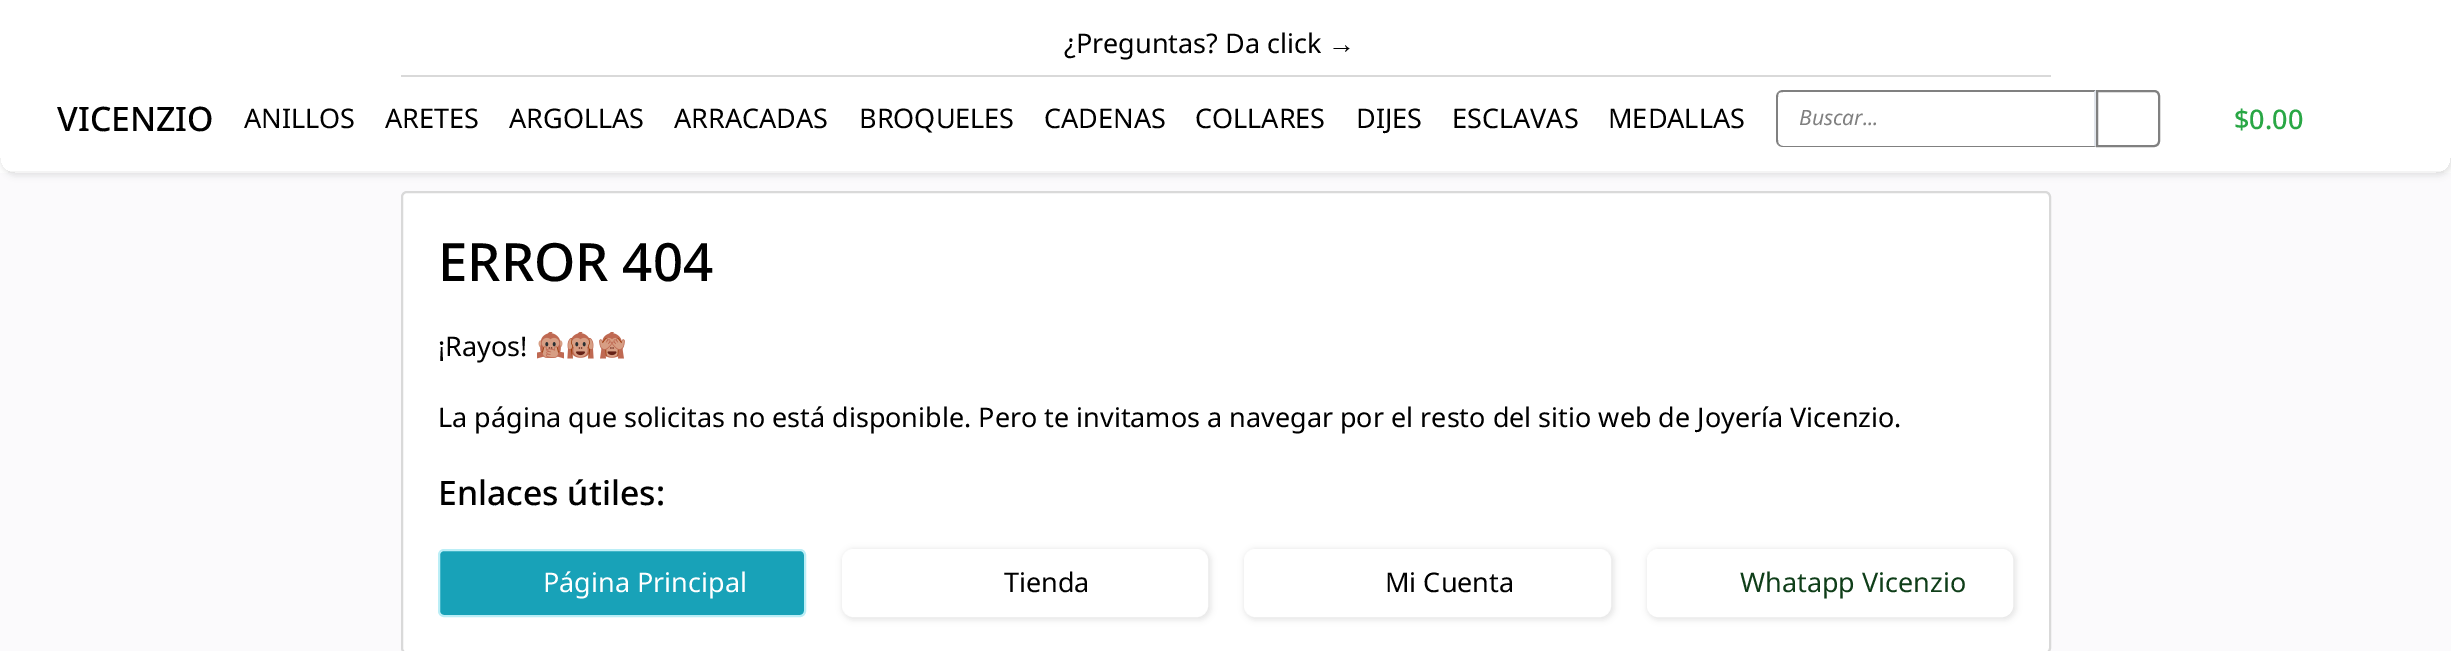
%!PS-Adobe-3.0
%%BoundingBox: 0 0 2451 651
%%LanguageLevel: 3
%%Pages: 1
%%EndComments
%%BeginProlog
/setink { 3 { 255 div 3 1 roll } repeat setrgbcolor } def
/usefont { [ exch dup neg 0 0 3 -1 roll 0 0 ] selectfont } def
/drawtext { setink usefont moveto show } def
/fillbox { setink rectfill } def
/setalpha { dup .setfillconstantalpha .setstrokeconstantalpha } def
/rrect { 5 dict begin { /r /h /w /y /x } { exch def } forall
  x r add y moveto x w add y 2 copy h add r arct x w add y h add x 1 index r arct
  x y h add x y r arct x y 2 copy exch w add exch r arct closepath end } def
/softshadow { 12 dict begin { /a /b /q /h /w /y /x } { exch def } forall gsave /was 0 def
  9 -2 -9 { dup b mul 4 div /e exch def 1 sub .425 mul 2.718 exch exp 1 add a .99 .min exch div /now exch def
    1 1 now sub 1 was sub div sub setalpha /was now def
    w h .min e 2 mul add 0 gt { x e sub y e sub w e 2 mul add h e 2 mul add
      q e add b .6 mul add w h .min 2 div e add .min 0 .max rrect fill } if } for grestore end } def
/drawimage { 5 dict begin { /h /w /y /x /name } { exch def } forall
  gsave x y translate w h scale
  w h 8 [w 0 0 h 0 0] name (r) file false 3 colorimage grestore end } def
%%EndProlog
%%BeginSetup
<< /PageSize [2451 651] /PageUsesTransparency true >> setpagedevice
%%EndSetup
%%Page: 1 1
0 .pushpdf14devicefilter
0 651 translate 1 -1 scale
4 setmiterlimit
0 0 2451 651 255 255 255 fillbox
gsave
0 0 moveto 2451 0 lineto 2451 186 lineto 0 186 lineto closepath 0 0 moveto 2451 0 lineto 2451 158 lineto 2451 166.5 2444.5 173 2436 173 curveto 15 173 lineto 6.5 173 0 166.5 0 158 curveto closepath eoclip newpath
0 0 0 setink
0 0 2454 176 17 3 0.1 softshadow
grestore
0.3 setalpha
8 171 2436 2 217 217 217 fillbox
1 setalpha
401 75 1650 2 217 217 217 fillbox
(¿Preguntas? Da click) 1064 53 /NotoSans-Regular 27 0 0 0 drawtext
(→) 1328 53 /LiberationSans-Regular 27 0 0 0 drawtext
(VICENZIO) 57 131 /NotoSans-Medium 33.75 0 0 0 drawtext
(ANILLOS) 244 128 /NotoSans-Regular 27 0 0 0 drawtext
(ARETES) 385 128 /NotoSans-Regular 27 0 0 0 drawtext
(ARGOLLAS) 509 128 /NotoSans-Regular 27 0 0 0 drawtext
(ARRACADAS) 674 128 /NotoSans-Regular 27 0 0 0 drawtext
(BROQUELES) 859 128 /NotoSans-Regular 27 0 0 0 drawtext
(CADENAS) 1044 128 /NotoSans-Regular 27 0 0 0 drawtext
(COLLARES) 1195 128 /NotoSans-Regular 27 0 0 0 drawtext
(DIJES) 1356 128 /NotoSans-Regular 27 0 0 0 drawtext
(ESCLAVAS) 1452 128 /NotoSans-Regular 27 0 0 0 drawtext
(MEDALLAS) 1608 128 /NotoSans-Regular 27 0 0 0 drawtext
128 128 128 setink
1783 90 moveto 1781 90 1779 91 1778 92 curveto 1779 93 lineto 1780 92 1782 92 1783 92 curveto 2094 92 lineto 2096 90 lineto closepath fill
225 229 235 setink
2096 90 moveto 2096 147 lineto 2094 146 lineto 2094 92 lineto closepath fill
128 128 128 setink
2096 147 moveto 2094 146 lineto 1783 146 lineto 1781 146 1780 145 1779 144 curveto 1778 145 lineto 1779 146 1781 147 1783 147 curveto closepath fill
1776 97 moveto 1776 140 lineto 1776 142 1777 144 1778 145 curveto 1779 144 lineto 1778 143 1778 141 1778 140 curveto 1778 97 lineto 1778 96 1778 94 1779 93 curveto 1778 92 lineto 1777 93 1776 95 1776 97 curveto closepath fill
(Buscar...) 1799 125 /NotoSans-Italic 21 128 128 128 drawtext
2 setlinewidth
2097 91 moveto 2154 91 lineto 2157 91 2159 93 2159 96 curveto 2159 141 lineto 2159 144 2157 146 2154 146 curveto 2097 146 lineto closepath stroke
($0.00) 2234 129 /NotoSans-Medium 27 41 167 69 drawtext
0.1 setalpha
0 173 2451 478 211 207 226 fillbox
1 setalpha
255 255 255 setink
402 192 1648 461 5 rrect gsave fill grestore
217 217 217 setink
stroke
(ERROR 404) 438 281 /NotoSans-Medium 52.75 0 0 0 drawtext
(¡Rayos!) 438 356 /NotoSans-Regular 27 0 0 0 drawtext
(assets/img1.rgb) 537 332 27 27 drawimage
(assets/img2.rgb) 567 332 27 27 drawimage
(assets/img3.rgb) 599 332 26 27 drawimage
(La página que solicitas no está disponible. Pero te invitamos a navegar por el resto del sitio web de Joyería Vicenzio.) 438 427 /NotoSans-Regular 27 0 0 0 drawtext
(Enlaces útiles:) 438 505 /NotoSans-Medium 33.75 0 0 0 drawtext
24 162 184 setink
439 550 366 66 5 rrect gsave fill grestore
187 238 246 setink
stroke
(Página Principal) 543 592 /NotoSans-Regular 27 255 255 255 drawtext
gsave
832 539 moveto 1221 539 lineto 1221 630 lineto 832 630 lineto closepath 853 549 moveto 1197 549 lineto 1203 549 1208 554 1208 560 curveto 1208 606 lineto 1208 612 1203 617 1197 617 curveto 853 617 lineto 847 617 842 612 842 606 curveto 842 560 lineto 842 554 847 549 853 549 curveto closepath eoclip newpath
0 0 0 setink
842 549 369 71 12 3 0.1 softshadow
grestore
0.9 setalpha
843 550 364 66 10 rrect stroke
1 setalpha
(Tienda) 1004 592 /NotoSans-Regular 27 0 0 0 drawtext
gsave
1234 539 moveto 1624 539 lineto 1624 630 lineto 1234 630 lineto closepath 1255 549 moveto 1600 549 lineto 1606 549 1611 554 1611 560 curveto 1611 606 lineto 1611 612 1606 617 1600 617 curveto 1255 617 lineto 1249 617 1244 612 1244 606 curveto 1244 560 lineto 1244 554 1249 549 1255 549 curveto closepath eoclip newpath
1244 549 370 71 12 3 0.1 softshadow
grestore
0.9 setalpha
255 255 255 setink
1245 550 365 66 10 rrect stroke
1 setalpha
(Mi Cuenta) 1385 592 /NotoSans-Regular 27 0 0 0 drawtext
gsave
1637 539 moveto 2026 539 lineto 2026 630 lineto 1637 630 lineto closepath 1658 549 moveto 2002 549 lineto 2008 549 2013 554 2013 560 curveto 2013 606 lineto 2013 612 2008 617 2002 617 curveto 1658 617 lineto 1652 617 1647 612 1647 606 curveto 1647 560 lineto 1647 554 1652 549 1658 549 curveto closepath eoclip newpath
1647 549 369 71 12 3 0.1 softshadow
grestore
255 255 255 setink
1648 550 364 66 10 rrect stroke
(Whatapp Vicenzio) 1740 592 /NotoSans-Regular 27 15 62 25 drawtext
.poppdf14devicefilter showpage
%%EOF
